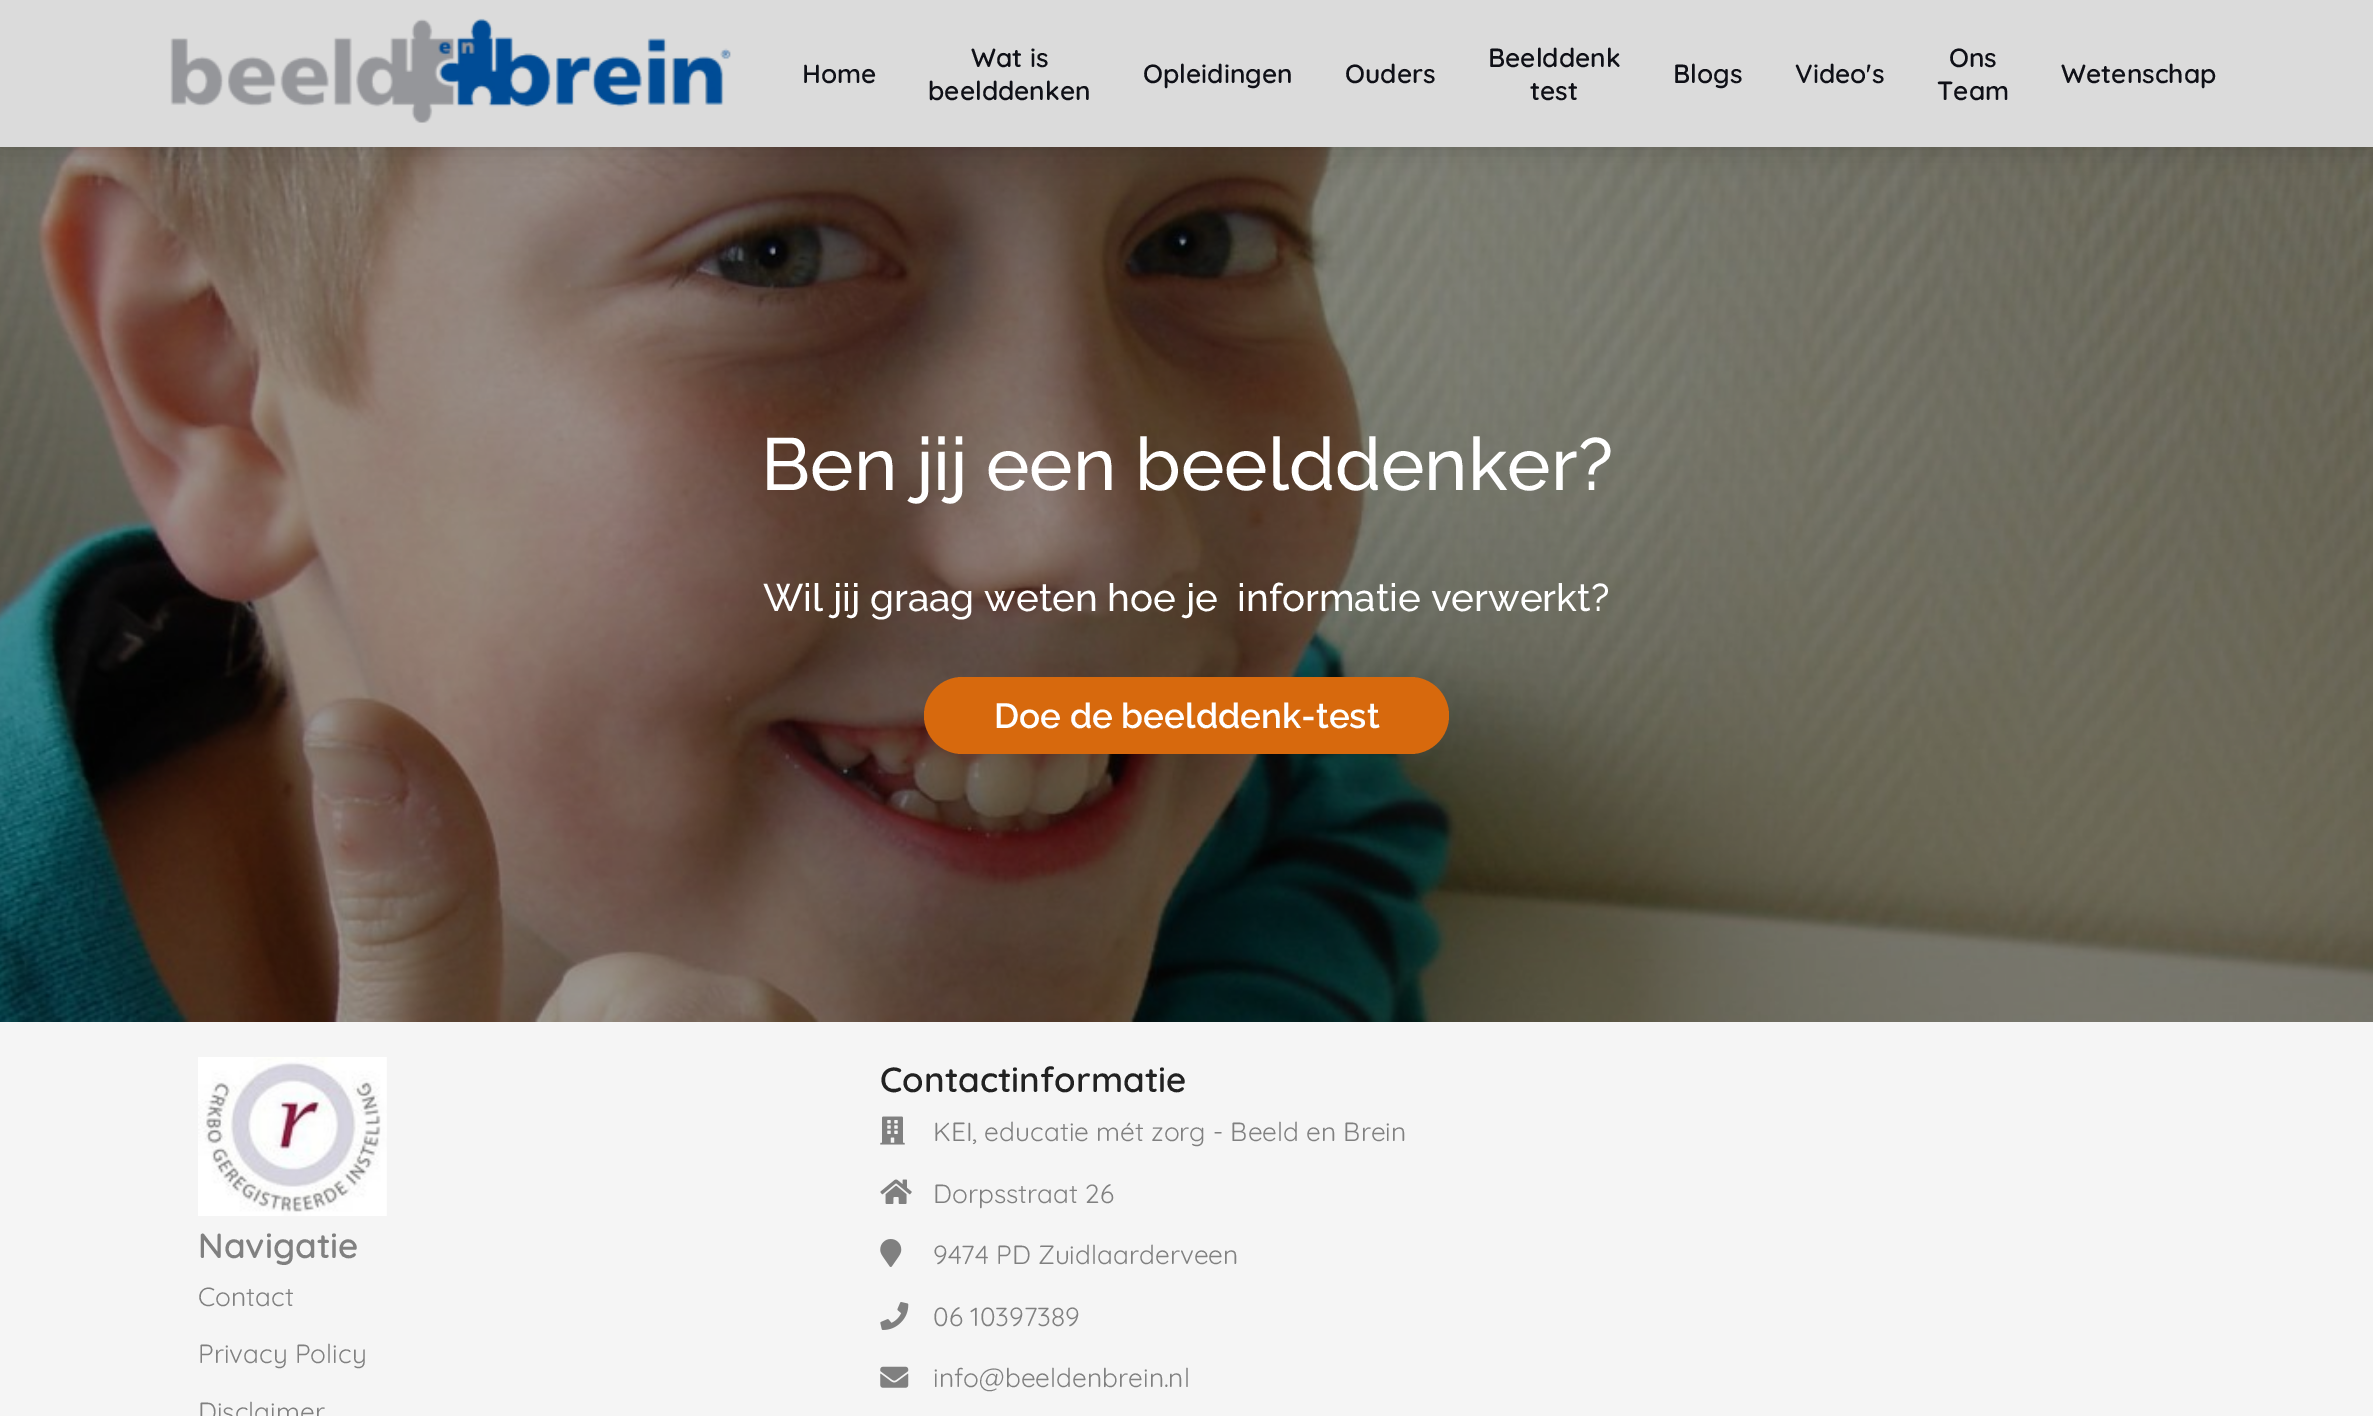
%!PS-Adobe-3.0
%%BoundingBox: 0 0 2373 1416
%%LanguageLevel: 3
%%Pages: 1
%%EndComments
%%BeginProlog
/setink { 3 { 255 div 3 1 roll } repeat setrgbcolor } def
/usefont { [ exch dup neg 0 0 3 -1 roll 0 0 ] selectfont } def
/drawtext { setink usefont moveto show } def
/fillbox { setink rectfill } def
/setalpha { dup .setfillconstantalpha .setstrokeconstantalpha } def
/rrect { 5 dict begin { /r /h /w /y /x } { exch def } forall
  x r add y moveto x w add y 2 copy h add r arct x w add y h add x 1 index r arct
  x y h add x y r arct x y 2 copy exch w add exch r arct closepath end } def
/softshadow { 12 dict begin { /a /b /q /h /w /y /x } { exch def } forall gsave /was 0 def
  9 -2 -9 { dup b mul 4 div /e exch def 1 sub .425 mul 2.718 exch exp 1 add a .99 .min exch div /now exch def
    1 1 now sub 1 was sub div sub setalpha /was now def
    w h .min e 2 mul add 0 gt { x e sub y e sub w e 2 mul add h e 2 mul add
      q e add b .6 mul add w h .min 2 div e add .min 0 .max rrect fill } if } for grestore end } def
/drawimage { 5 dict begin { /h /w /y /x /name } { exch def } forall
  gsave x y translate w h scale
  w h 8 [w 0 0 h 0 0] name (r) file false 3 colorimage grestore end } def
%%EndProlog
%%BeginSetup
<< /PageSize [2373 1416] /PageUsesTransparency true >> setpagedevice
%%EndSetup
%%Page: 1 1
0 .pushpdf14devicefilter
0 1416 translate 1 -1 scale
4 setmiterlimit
0 0 2373 1416 245 245 245 fillbox
(assets/img2.rgb) 0 147 2373 875 drawimage
0 0 0 setink
0 0 2373 147 0 13 0.2 softshadow
0 0 2373 147 219 219 219 fillbox
(assets/img1.rgb) 170 18 561 105 drawimage
(Home) 802 83 /Quicksand-SemiBold 26.25 15 16 23 drawtext
(Wat is) 971 67 /Quicksand-SemiBold 26.25 15 16 23 drawtext
(beelddenken) 928 100 /Quicksand-SemiBold 26.25 15 16 23 drawtext
(Opleidingen) 1143 83 /Quicksand-SemiBold 26.25 15 16 23 drawtext
(Ouders) 1345 83 /Quicksand-SemiBold 26.25 15 16 23 drawtext
(Beelddenk) 1488 67 /Quicksand-SemiBold 26.25 15 16 23 drawtext
(test) 1530 100 /Quicksand-SemiBold 26.25 15 16 23 drawtext
(Blogs) 1673 83 /Quicksand-SemiBold 26.25 15 16 23 drawtext
(Video's) 1795 83 /Quicksand-SemiBold 26.25 15 16 23 drawtext
(Ons) 1949 67 /Quicksand-SemiBold 26.25 15 16 23 drawtext
(Team) 1937 100 /Quicksand-SemiBold 26.25 15 16 23 drawtext
(Wetenschap) 2061 83 /Quicksand-SemiBold 26.25 15 16 23 drawtext
(Ben jij een beelddenker?) 761 490 /Raleway-Medium 73.5 255 255 255 drawtext
(Wil jij graag weten hoe je  informatie verwerkt?) 763 611 /Raleway-Medium 38.5 255 255 255 drawtext
215 105 13 setink
924 677 525 77 38.5 rrect fill
(Doe de beelddenk-test) 994 728 /Raleway-SemiBold 35 255 255 255 drawtext
(assets/img3.rgb) 198 1057 189 159 drawimage
(Navigatie) 198 1258 /Quicksand-SemiBold 35 128 128 128 drawtext
(Contact) 198 1306 /Quicksand-Regular 26.25 128 128 128 drawtext
(Privacy Policy) 198 1363 /Quicksand-Regular 26.25 128 128 128 drawtext
(Disclaimer) 198 1421 /Quicksand-Regular 26.25 128 128 128 drawtext
(Contactinformatie) 880 1092 /Quicksand-SemiBold 35 34 34 34 drawtext
(assets/img4.rgb) 880 1116 25 29 drawimage
(KEI, educatie mét zorg - Beeld en Brein) 933 1141 /Quicksand-Regular 26.25 128 128 128 drawtext
(assets/img5.rgb) 880 1179 32 25 drawimage
(Dorpsstraat 26) 933 1203 /Quicksand-Regular 26.25 128 128 128 drawtext
(assets/img6.rgb) 880 1239 22 28 drawimage
(9474 PD Zuidlaarderveen) 933 1264 /Quicksand-Regular 26.25 128 128 128 drawtext
(assets/img7.rgb) 880 1302 29 28 drawimage
(06 10397389) 933 1326 /Quicksand-Regular 26.25 128 128 128 drawtext
(assets/img8.rgb) 880 1366 29 22 drawimage
(info@beeldenbrein.nl) 933 1387 /Quicksand-Regular 26.25 128 128 128 drawtext
.poppdf14devicefilter showpage
%%EOF
